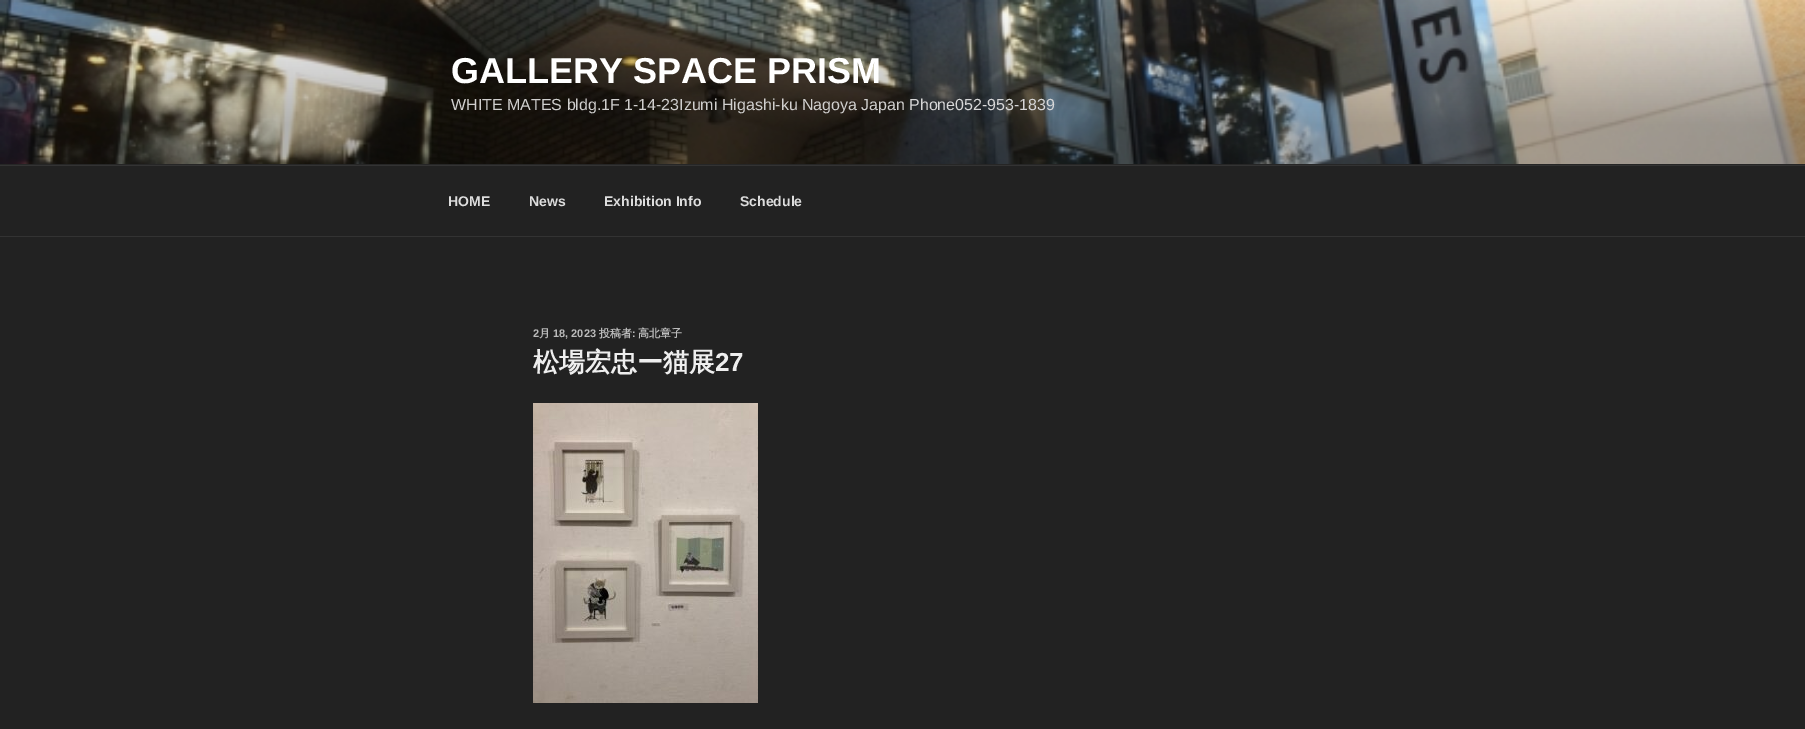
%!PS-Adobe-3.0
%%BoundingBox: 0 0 1805 729
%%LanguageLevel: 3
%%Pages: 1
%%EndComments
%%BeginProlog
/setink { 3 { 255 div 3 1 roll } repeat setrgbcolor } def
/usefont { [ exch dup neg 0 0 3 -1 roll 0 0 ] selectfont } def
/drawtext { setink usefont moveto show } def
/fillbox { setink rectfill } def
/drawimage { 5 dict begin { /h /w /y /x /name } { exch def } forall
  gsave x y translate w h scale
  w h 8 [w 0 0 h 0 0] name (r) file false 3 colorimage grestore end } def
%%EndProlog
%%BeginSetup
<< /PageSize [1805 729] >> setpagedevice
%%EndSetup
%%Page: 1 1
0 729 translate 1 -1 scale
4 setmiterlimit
0 0 1805 729 34 34 34 fillbox
0 164 1805 1 38 38 38 fillbox
(assets/img1.rgb) 0 0 1805 164 drawimage
(GALLERY SPACE PRISM) 451 83 /LiberationSans-Bold 36 255 255 255 drawtext
(WHITE MATES bldg.1F) 451 110 /LiberationSans-Regular 16 208 207 206 drawtext
(1-14-23Izumi Higashi-ku Nagoya Japan) 624 110 /LiberationSans-Regular 16 208 207 206 drawtext
(Phone052-953-1839) 909 110 /LiberationSans-Regular 16 215 215 216 drawtext
0 165 1805 1 51 51 51 fillbox
0 236 1805 1 51 51 51 fillbox
(HOME) 448 206 /LiberationSans-Bold 14 221 221 221 drawtext
(News) 529 206 /LiberationSans-Bold 14 221 221 221 drawtext
(Exhibition Info) 604 206 /LiberationSans-Bold 14 221 221 221 drawtext
(Schedule) 740 206 /LiberationSans-Bold 14 221 221 221 drawtext
(2) 533 337 /LiberationSans-Bold 11 187 187 187 drawtext
(月) 539 337 /WenQuanYiZenHei-Bold 11 187 187 187 drawtext
(18, 2023) 553 337 /LiberationSans-Bold 11 187 187 187 drawtext
(投稿者) 599 337 /WenQuanYiZenHei-Bold 11 187 187 187 drawtext
(:) 632 337 /LiberationSans-Bold 11 187 187 187 drawtext
(高北章子) 638 337 /WenQuanYiZenHei-Bold 11 187 187 187 drawtext
(松場宏忠ー猫展) 533 371 /WenQuanYiZenHei-Bold 26 238 238 238 drawtext
(27) 715 371 /LiberationSans-Bold 26 238 238 238 drawtext
(assets/img2.rgb) 533 403 225 300 drawimage
showpage
%%EOF
